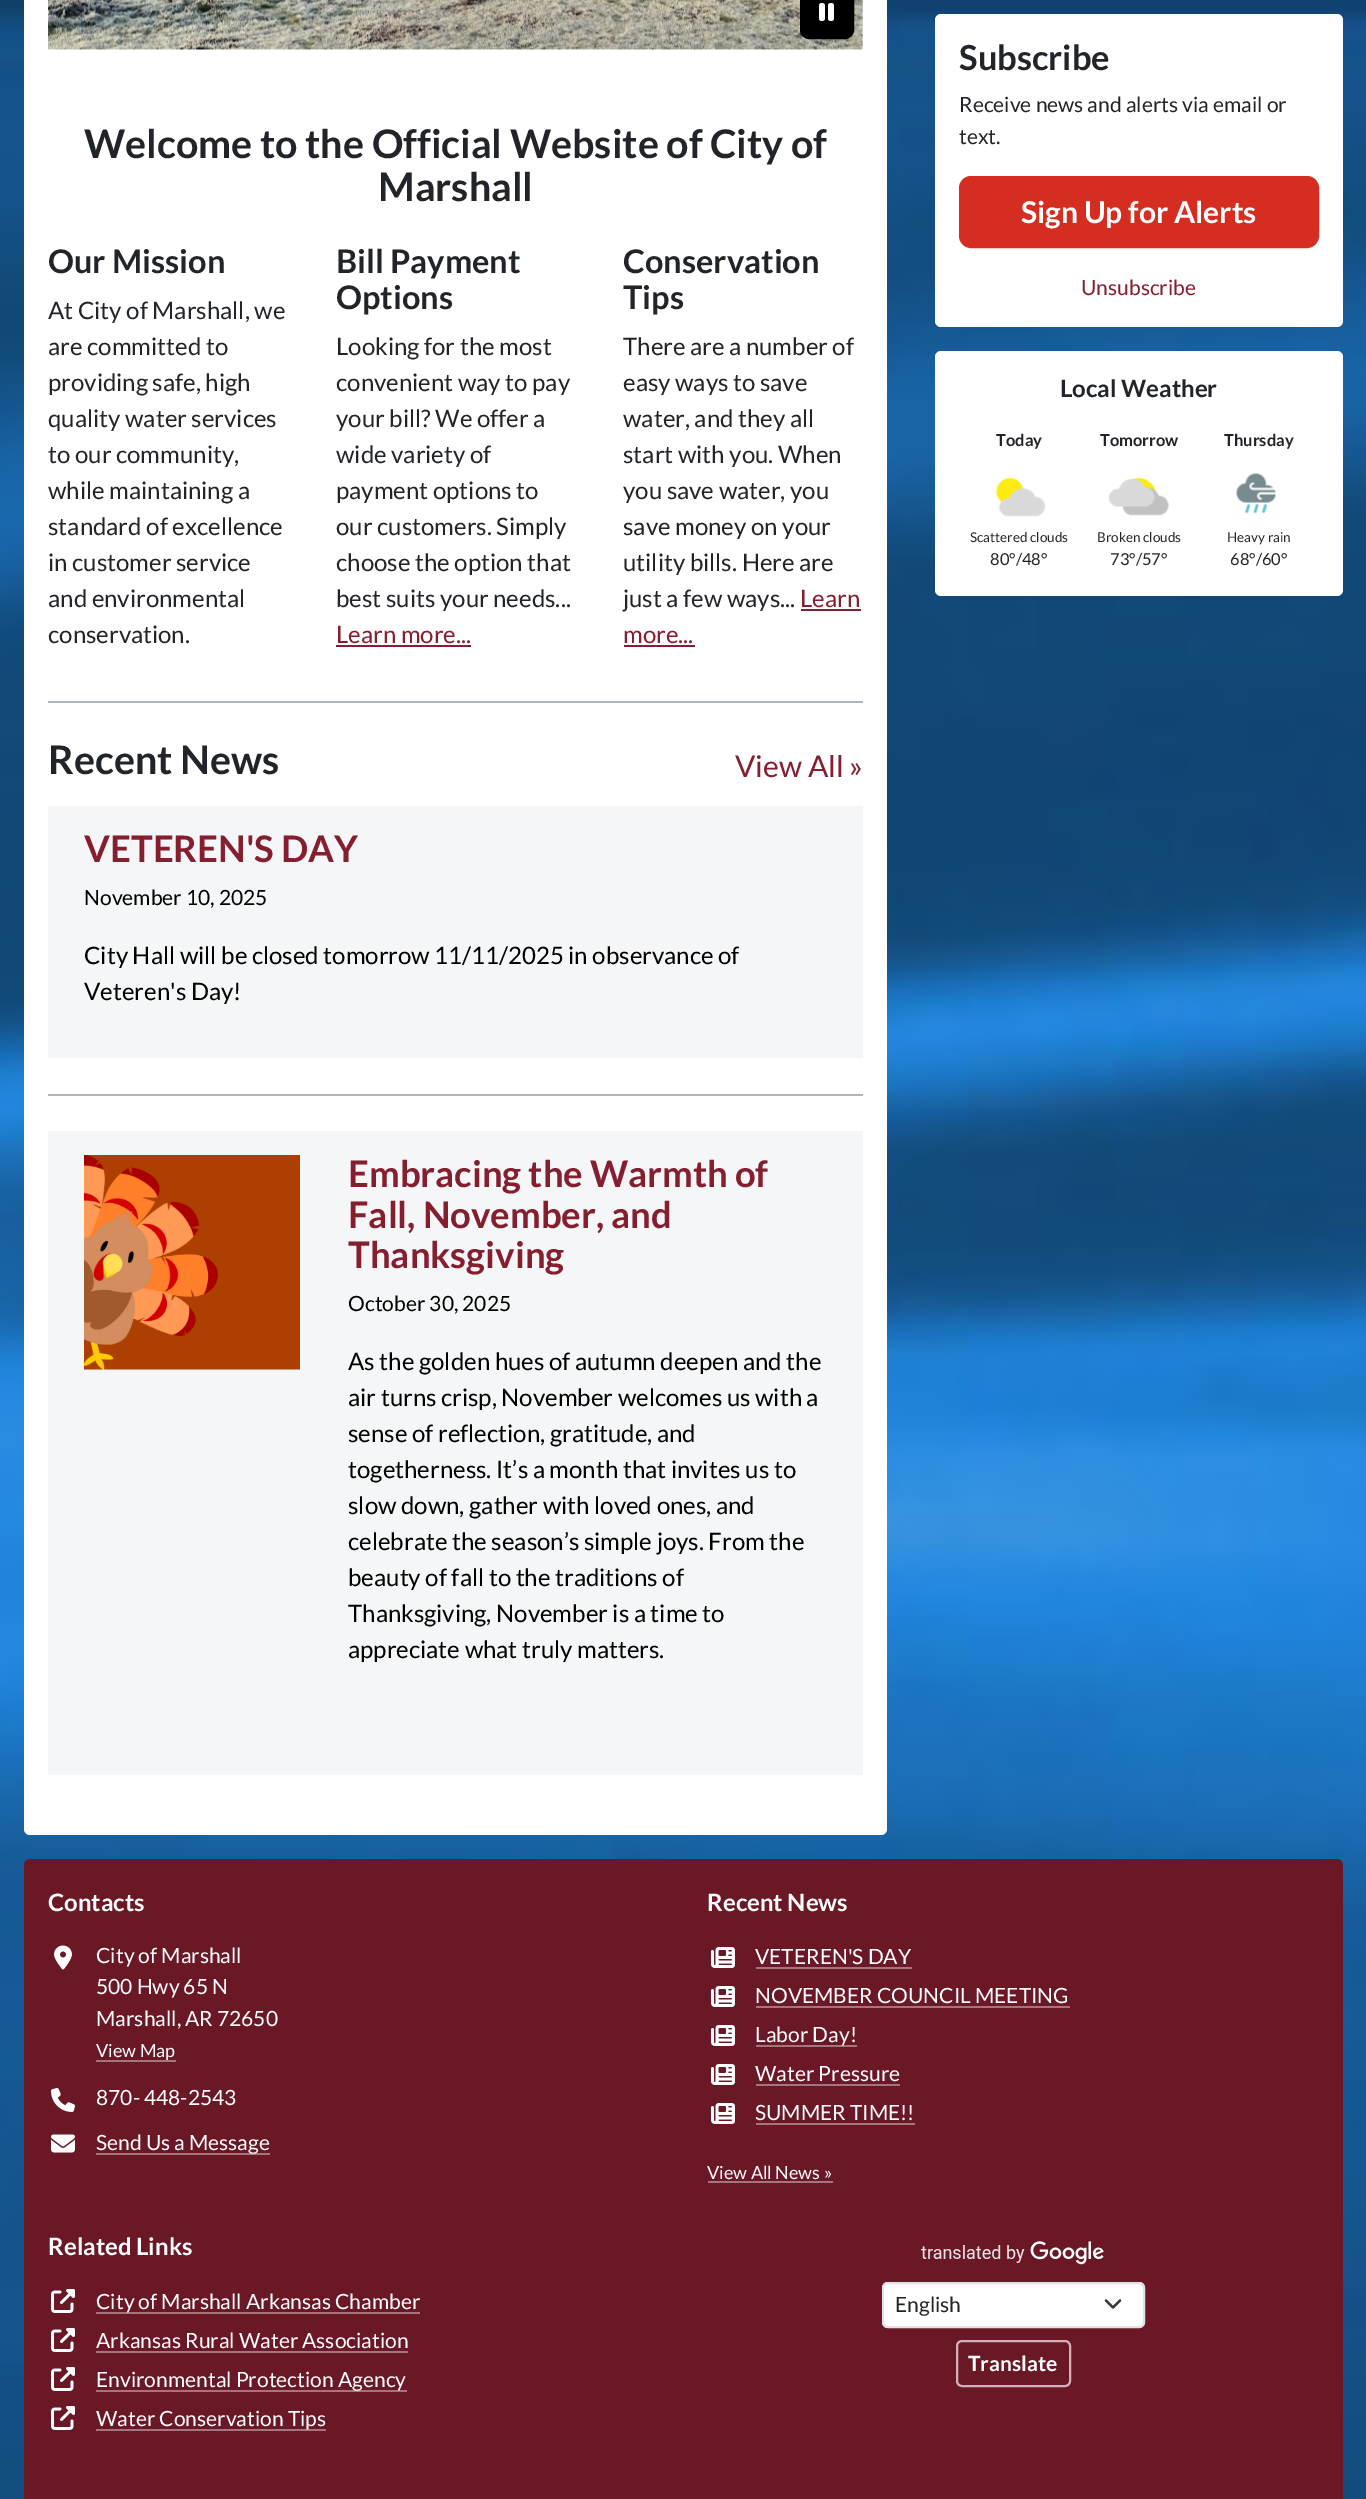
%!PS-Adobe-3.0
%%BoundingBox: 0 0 1366 2499
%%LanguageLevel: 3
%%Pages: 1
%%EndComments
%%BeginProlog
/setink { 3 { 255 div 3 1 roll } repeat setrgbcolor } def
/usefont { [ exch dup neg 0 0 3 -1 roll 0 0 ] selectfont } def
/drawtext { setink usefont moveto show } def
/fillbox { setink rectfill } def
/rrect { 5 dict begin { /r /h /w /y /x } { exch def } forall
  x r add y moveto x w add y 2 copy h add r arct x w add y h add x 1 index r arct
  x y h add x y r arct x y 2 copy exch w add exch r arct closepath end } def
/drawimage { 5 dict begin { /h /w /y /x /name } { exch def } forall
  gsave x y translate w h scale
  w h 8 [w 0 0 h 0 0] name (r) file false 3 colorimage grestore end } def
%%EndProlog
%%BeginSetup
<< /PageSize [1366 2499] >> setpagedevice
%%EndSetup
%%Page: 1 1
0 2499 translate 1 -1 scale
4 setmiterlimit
0 0 1366 2499 255 255 255 fillbox
(assets/img1.rgb) 0 0 1366 2499 drawimage
24 -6 863 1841 6 rrect fill
(assets/img3.rgb) 48 0 815 50 drawimage
0 0 0 setink
801 -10 52 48 8 rrect gsave fill grestore
2 setlinewidth
stroke
(assets/img2.rgb) 819 3 15 18 drawimage
(Welcome to the Official Website of City of) 84 158 /Lato-Bold 39.4 33 37 41 drawtext
(Marshall) 378 201 /Lato-Bold 39.4 33 37 41 drawtext
(Our Mission) 48 273 /Lato-Bold 32.5 33 37 41 drawtext
(At City of Marshall, we) 48 319 /Lato-Regular 24 33 37 41 drawtext
(are committed to) 48 355 /Lato-Regular 24 33 37 41 drawtext
(providing safe, high) 48 391 /Lato-Regular 24 33 37 41 drawtext
(quality water services) 48 427 /Lato-Regular 24 33 37 41 drawtext
(to our community,) 48 463 /Lato-Regular 24 33 37 41 drawtext
(while maintaining a) 48 499 /Lato-Regular 24 33 37 41 drawtext
(standard of excellence) 48 535 /Lato-Regular 24 33 37 41 drawtext
(in customer service) 48 571 /Lato-Regular 24 33 37 41 drawtext
(and environmental) 48 607 /Lato-Regular 24 33 37 41 drawtext
(conservation.) 48 643 /Lato-Regular 24 33 37 41 drawtext
(Bill Payment) 336 273 /Lato-Bold 32.5 33 37 41 drawtext
(Options) 336 309 /Lato-Bold 32.5 33 37 41 drawtext
(Looking for the most) 336 355 /Lato-Regular 24 33 37 41 drawtext
(convenient way to pay) 336 391 /Lato-Regular 24 33 37 41 drawtext
(your bill? We offer a) 336 427 /Lato-Regular 24 33 37 41 drawtext
(wide variety of) 336 463 /Lato-Regular 24 33 37 41 drawtext
(payment options to) 336 499 /Lato-Regular 24 33 37 41 drawtext
(our customers. Simply) 336 535 /Lato-Regular 24 33 37 41 drawtext
(choose the option that) 336 571 /Lato-Regular 24 33 37 41 drawtext
(best suits your needs...) 336 607 /Lato-Regular 24 33 37 41 drawtext
(Learn more...) 336 643 /Lato-Regular 24 133 30 47 drawtext
336 645 135 2 133 30 47 fillbox
(Conservation) 623 273 /Lato-Bold 32.5 33 37 41 drawtext
(Tips) 623 309 /Lato-Bold 32.5 33 37 41 drawtext
(There are a number of) 623 355 /Lato-Regular 24 33 37 41 drawtext
(easy ways to save) 623 391 /Lato-Regular 24 33 37 41 drawtext
(water, and they all) 623 427 /Lato-Regular 24 33 37 41 drawtext
(start with you. When) 623 463 /Lato-Regular 24 33 37 41 drawtext
(you save water, you) 623 499 /Lato-Regular 24 33 37 41 drawtext
(save money on your) 623 535 /Lato-Regular 24 33 37 41 drawtext
(utility bills. Here are) 623 571 /Lato-Regular 24 33 37 41 drawtext
(just a few ways...) 623 607 /Lato-Regular 24 33 37 41 drawtext
(Learn) 800 607 /Lato-Regular 24 133 30 47 drawtext
801 609 60 2 133 30 47 fillbox
(more...) 623 643 /Lato-Regular 24 133 30 47 drawtext
624 645 71 2 133 30 47 fillbox
48 701 815 2 173 181 189 fillbox
(Recent News) 48 774 /Lato-Bold 39.4 33 37 41 drawtext
(View All ») 735 777 /Lato-Regular 30 133 30 47 drawtext
48 806 815 252 244 246 247 fillbox
(VETEREN'S DAY) 84 862 /Lato-Bold 36.5 133 30 47 drawtext
(November 10, 2025) 84 905 /Lato-Regular 21 0 0 0 drawtext
(City Hall will be closed tomorrow 11/11/2025 in observance of) 84 964 /Lato-Regular 24 0 0 0 drawtext
(Veteren's Day!) 84 1000 /Lato-Regular 24 0 0 0 drawtext
48 1094 815 2 173 181 189 fillbox
48 1131 815 644 244 246 247 fillbox
(assets/img4.rgb) 84 1155 216 215 drawimage
(Embracing the Warmth of) 348 1187 /Lato-Bold 36.5 133 30 47 drawtext
(Fall, November, and) 348 1228 /Lato-Bold 36.5 133 30 47 drawtext
(Thanksgiving) 348 1268 /Lato-Bold 36.5 133 30 47 drawtext
(October 30, 2025) 348 1311 /Lato-Regular 21 0 0 0 drawtext
(As the golden hues of autumn deepen and the) 348 1370 /Lato-Regular 24 0 0 0 drawtext
(air turns crisp, November welcomes us with a) 348 1406 /Lato-Regular 24 0 0 0 drawtext
(sense of reflection, gratitude, and) 348 1442 /Lato-Regular 24 0 0 0 drawtext
(togetherness. It’s a month that invites us to) 348 1478 /Lato-Regular 24 0 0 0 drawtext
(slow down, gather with loved ones, and) 348 1514 /Lato-Regular 24 0 0 0 drawtext
(celebrate the season’s simple joys. From the) 348 1550 /Lato-Regular 24 0 0 0 drawtext
(beauty of fall to the traditions of) 348 1586 /Lato-Regular 24 0 0 0 drawtext
(Thanksgiving, November is a time to) 348 1622 /Lato-Regular 24 0 0 0 drawtext
(appreciate what truly matters.) 348 1658 /Lato-Regular 24 0 0 0 drawtext
255 255 255 setink
935 14 408 313 6 rrect fill
(Subscribe) 959 70 /Lato-Bold 34.5 33 37 41 drawtext
(Receive news and alerts via email or) 959 112 /Lato-Regular 21 33 37 41 drawtext
(text.) 959 144 /Lato-Regular 21 33 37 41 drawtext
213 46 32 setink
960 177 358 70 11 rrect gsave fill grestore
stroke
(Sign Up for Alerts) 1021 223 /Lato-Bold 30 255 255 255 drawtext
(Unsubscribe) 1081 295 /Lato-Regular 21 133 30 47 drawtext
255 255 255 setink
935 351 408 245 6 rrect fill
(Local Weather) 1060 397 /Lato-Bold 24 33 37 41 drawtext
(Today) 996 446 /Lato-Bold 16.5 33 37 41 drawtext
(Tomorrow) 1100 446 /Lato-Bold 16.5 33 37 41 drawtext
(Thursday) 1224 446 /Lato-Bold 16.5 33 37 41 drawtext
(assets/img5.rgb) 996 477 50 40 drawimage
(Scattered clouds) 970 542 /Lato-Regular 13.5 33 37 41 drawtext
(80°/48°) 990 565 /Lato-Regular 16.5 33 37 41 drawtext
(assets/img6.rgb) 1108 477 61 39 drawimage
(Broken clouds) 1097 542 /Lato-Regular 13.5 33 37 41 drawtext
(73°/57°) 1110 565 /Lato-Regular 16.5 33 37 41 drawtext
(assets/img7.rgb) 1236 473 40 41 drawimage
(Heavy rain) 1227 542 /Lato-Regular 13.5 33 37 41 drawtext
(68°/60°) 1230 565 /Lato-Regular 16.5 33 37 41 drawtext
106 24 38 setink
24 1859 1319 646 6 rrect fill
(Contacts) 48 1911 /Lato-Bold 24 255 255 255 drawtext
(assets/img8.rgb) 54 1945 18 25 drawimage
(City of Marshall) 96 1963 /Lato-Regular 21 255 255 255 drawtext
(500 Hwy 65 N) 96 1994 /Lato-Regular 21 255 255 255 drawtext
(Marshall, AR 72650) 96 2026 /Lato-Regular 21 255 255 255 drawtext
96 2060 80 2 166 116 125 fillbox
(View Map) 96 2057 /Lato-Regular 18 255 255 255 drawtext
(assets/img9.rgb) 51 2088 24 24 drawimage
(870- 448-2543) 96 2105 /Lato-Regular 21 255 255 255 drawtext
(assets/img10.rgb) 51 2134 24 19 drawimage
96 2153 174 2 166 116 125 fillbox
(Send Us a Message) 96 2150 /Lato-Regular 21 255 255 255 drawtext
(Recent News) 707 1911 /Lato-Bold 24 255 255 255 drawtext
(assets/img11.rgb) 711 1947 24 21 drawimage
(VETEREN'S DAY) 755 1964 /Lato-Regular 21 255 255 255 drawtext
756 1967 156 2 166 116 125 fillbox
(assets/img11.rgb) 711 1986 24 21 drawimage
(NOVEMBER COUNCIL MEETING) 755 2003 /Lato-Regular 21 255 255 255 drawtext
756 2006 314 2 166 116 125 fillbox
(assets/img11.rgb) 711 2025 24 21 drawimage
756 2045 101 2 166 116 125 fillbox
(Labor Day!) 755 2042 /Lato-Regular 21 255 255 255 drawtext
(assets/img11.rgb) 711 2064 24 21 drawimage
(Water Pressure) 755 2081 /Lato-Regular 21 255 255 255 drawtext
756 2084 144 2 166 116 125 fillbox
(assets/img11.rgb) 711 2103 24 21 drawimage
(SUMMER TIME!!) 755 2120 /Lato-Regular 21 255 255 255 drawtext
756 2123 159 2 166 116 125 fillbox
(View All News ») 707 2179 /Lato-Regular 18 255 255 255 drawtext
708 2181 125 2 166 116 125 fillbox
(Related Links) 48 2255 /Lato-Bold 24 255 255 255 drawtext
(assets/img12.rgb) 51 2289 24 24 drawimage
96 2312 324 2 166 116 125 fillbox
(City of Marshall Arkansas Chamber) 96 2309 /Lato-Regular 21 255 255 255 drawtext
(assets/img12.rgb) 51 2328 24 24 drawimage
(Arkansas Rural Water Association) 96 2348 /Lato-Regular 21 255 255 255 drawtext
96 2351 312 2 166 116 125 fillbox
(assets/img12.rgb) 51 2367 24 24 drawimage
96 2390 311 2 166 116 125 fillbox
(Environmental Protection Agency) 96 2387 /Lato-Regular 21 255 255 255 drawtext
(assets/img12.rgb) 51 2406 24 24 drawimage
96 2429 230 2 166 116 125 fillbox
(Water Conservation Tips) 96 2426 /Lato-Regular 21 255 255 255 drawtext
(assets/img13.rgb) 921 2241 183 24 drawimage
882 2282 263 46 6 rrect fill
52 58 64 setink
2.2 setlinewidth
1 setlinecap
1 setlinejoin
1106 2300.5 moveto 1113 2307.5 lineto 1120 2300.5 lineto stroke
222 226 230 setink
2 setlinewidth
0 setlinecap
0 setlinejoin
883 2283 261 44 5 rrect stroke
(English) 895 2312 /Lato-Regular 21 33 37 41 drawtext
212 176 182 setink
957 2341 113 45 5 rrect stroke
(Translate) 968 2371 /Lato-Bold 21 255 255 255 drawtext
showpage
%%EOF
